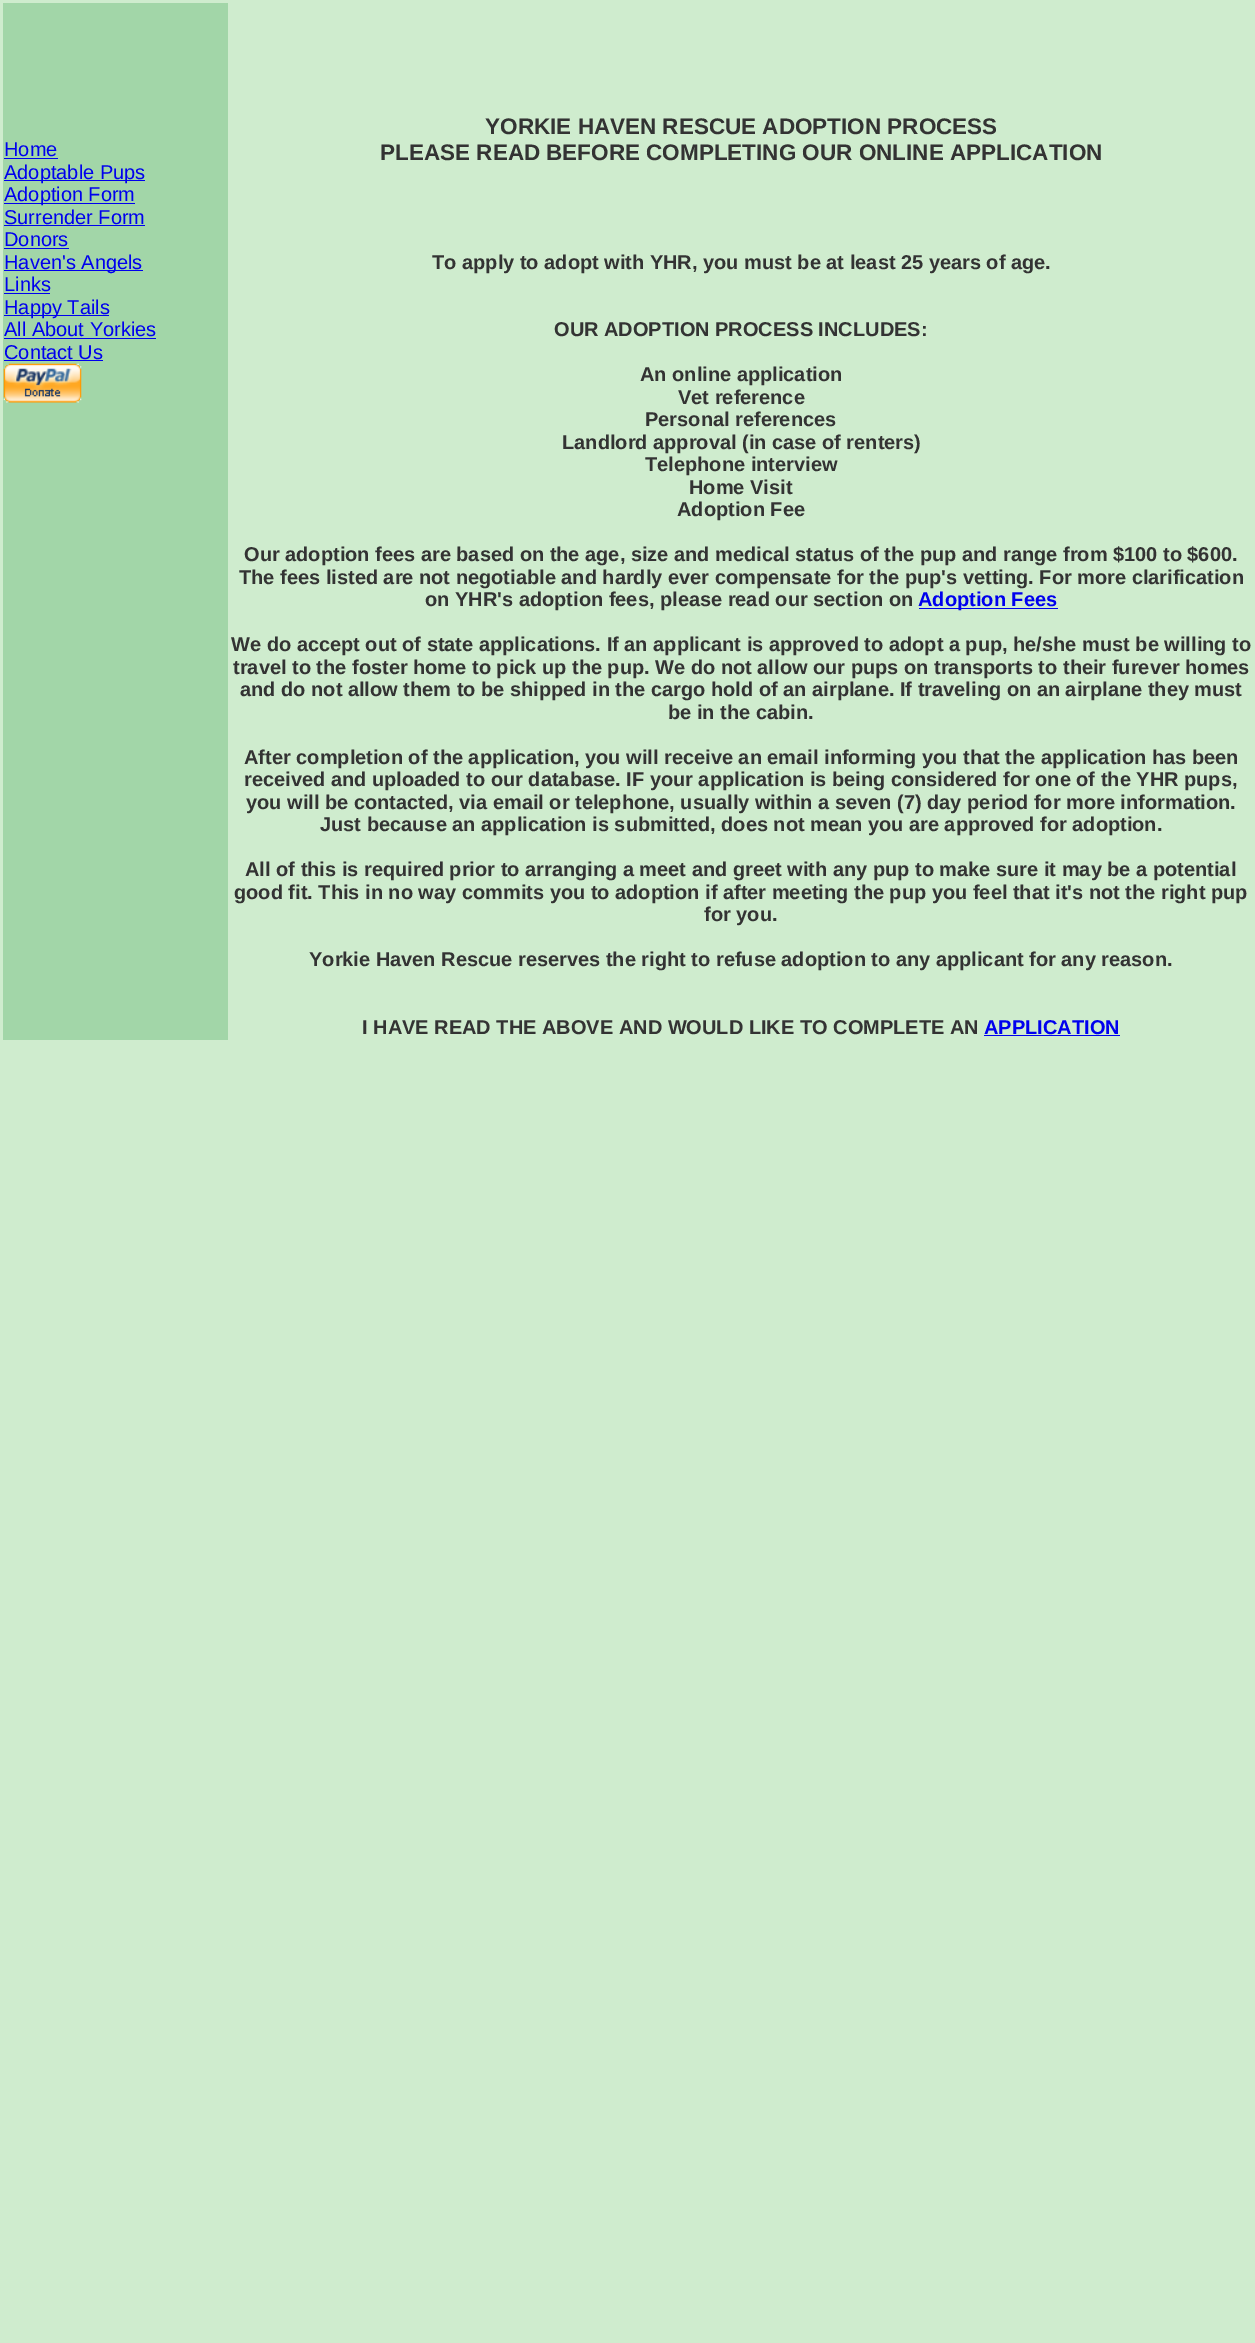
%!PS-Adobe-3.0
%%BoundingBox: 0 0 1255 2343
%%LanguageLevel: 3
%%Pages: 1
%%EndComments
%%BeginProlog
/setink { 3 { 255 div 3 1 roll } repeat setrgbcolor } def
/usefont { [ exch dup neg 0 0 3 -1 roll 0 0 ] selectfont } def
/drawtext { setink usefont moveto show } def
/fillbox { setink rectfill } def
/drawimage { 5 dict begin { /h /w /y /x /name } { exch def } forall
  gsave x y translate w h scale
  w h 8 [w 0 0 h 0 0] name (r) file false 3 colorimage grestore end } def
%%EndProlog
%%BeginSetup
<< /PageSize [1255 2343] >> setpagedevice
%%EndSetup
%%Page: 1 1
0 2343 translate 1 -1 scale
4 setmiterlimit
0 0 1255 2343 207 236 206 fillbox
3 3 225 1037 162 214 168 fillbox
(Home) 4 156 /LiberationSans-Regular 20 0 0 238 drawtext
4 158 54 1 0 0 238 fillbox
4 180 141 1 0 0 238 fillbox
(Adoptable Pups) 4 179 /LiberationSans-Regular 20 0 0 238 drawtext
4 203 131 1 0 0 238 fillbox
(Adoption Form) 4 201 /LiberationSans-Regular 20 0 0 238 drawtext
(Surrender Form) 4 224 /LiberationSans-Regular 20 0 0 238 drawtext
4 225 141 1 0 0 238 fillbox
(Donors) 4 246 /LiberationSans-Regular 20 0 0 238 drawtext
4 248 65 1 0 0 238 fillbox
4 270 139 1 0 0 238 fillbox
(Haven's Angels) 4 269 /LiberationSans-Regular 20 0 0 238 drawtext
(Links) 4 291 /LiberationSans-Regular 20 0 0 238 drawtext
4 293 46 1 0 0 238 fillbox
4 315 105 1 0 0 238 fillbox
(Happy Tails) 4 314 /LiberationSans-Regular 20 0 0 238 drawtext
(All About Yorkies) 4 336 /LiberationSans-Regular 20 0 0 238 drawtext
4 338 152 1 0 0 238 fillbox
(Contact Us) 4 359 /LiberationSans-Regular 20 0 0 238 drawtext
4 360 99 1 0 0 238 fillbox
(assets/img1.rgb) 3 363 79 40 drawimage
(YORKIE HAVEN RESCUE ADOPTION PROCESS) 485 134 /LiberationSans-Bold 22.5 51 51 51 drawtext
(PLEASE READ BEFORE COMPLETING OUR ONLINE APPLICATION) 380 160 /LiberationSans-Bold 22.5 51 51 51 drawtext
(To apply to adopt with YHR, you must be at least 25 years of age.) 432 269 /LiberationSans-Bold 20 51 51 51 drawtext
(OUR ADOPTION PROCESS INCLUDES:) 554 336 /LiberationSans-Bold 20 51 51 51 drawtext
(An online application) 640 381 /LiberationSans-Bold 20 51 51 51 drawtext
(Vet reference) 678 404 /LiberationSans-Bold 20 51 51 51 drawtext
(Personal references) 645 426 /LiberationSans-Bold 20 51 51 51 drawtext
(Landlord approval \(in case of renters\)) 562 449 /LiberationSans-Bold 20 51 51 51 drawtext
(Telephone interview) 645 471 /LiberationSans-Bold 20 51 51 51 drawtext
(Home Visit) 689 494 /LiberationSans-Bold 20 51 51 51 drawtext
(Adoption Fee) 677 516 /LiberationSans-Bold 20 51 51 51 drawtext
(Our adoption fees are based on the age, size and medical status of the pup and range from $100 to $600.) 244 561 /LiberationSans-Bold 20 51 51 51 drawtext
(The fees listed are not negotiable and hardly ever compensate for the pup's vetting. For more clarification) 239 584 /LiberationSans-Bold 20 51 51 51 drawtext
(on YHR's adoption fees, please read our section on) 425 606 /LiberationSans-Bold 20 51 51 51 drawtext
919 608 139 1 0 0 238 fillbox
(Adoption Fees) 918 606 /LiberationSans-Bold 20 0 0 238 drawtext
(We do accept out of state applications. If an applicant is approved to adopt a pup, he/she must be willing to) 231 651 /LiberationSans-Bold 20 51 51 51 drawtext
(travel to the foster home to pick up the pup. We do not allow our pups on transports to their furever homes) 233 674 /LiberationSans-Bold 20 51 51 51 drawtext
(and do not allow them to be shipped in the cargo hold of an airplane. If traveling on an airplane they must) 240 696 /LiberationSans-Bold 20 51 51 51 drawtext
(be in the cabin.) 668 719 /LiberationSans-Bold 20 51 51 51 drawtext
(After completion of the application, you will receive an email informing you that the application has been) 244 764 /LiberationSans-Bold 20 51 51 51 drawtext
(received and uploaded to our database. IF your application is being considered for one of the YHR pups,) 244 786 /LiberationSans-Bold 20 51 51 51 drawtext
(you will be contacted, via email or telephone, usually within a seven \(7\) day period for more information.) 246 809 /LiberationSans-Bold 20 51 51 51 drawtext
(Just because an application is submitted, does not mean you are approved for adoption.) 320 831 /LiberationSans-Bold 20 51 51 51 drawtext
(All of this is required prior to arranging a meet and greet with any pup to make sure it may be a potential) 245 876 /LiberationSans-Bold 20 51 51 51 drawtext
(good fit. This in no way commits you to adoption if after meeting the pup you feel that it's not the right pup) 234 899 /LiberationSans-Bold 20 51 51 51 drawtext
(for you.) 704 921 /LiberationSans-Bold 20 51 51 51 drawtext
(Yorkie Haven Rescue reserves the right to refuse adoption to any applicant for any reason.) 309 966 /LiberationSans-Bold 20 51 51 51 drawtext
(I HAVE READ THE ABOVE AND WOULD LIKE TO COMPLETE AN) 362 1034 /LiberationSans-Bold 20 51 51 51 drawtext
(APPLICATION) 984 1034 /LiberationSans-Bold 20 0 0 238 drawtext
984 1035 136 1 0 0 238 fillbox
showpage
%%EOF
